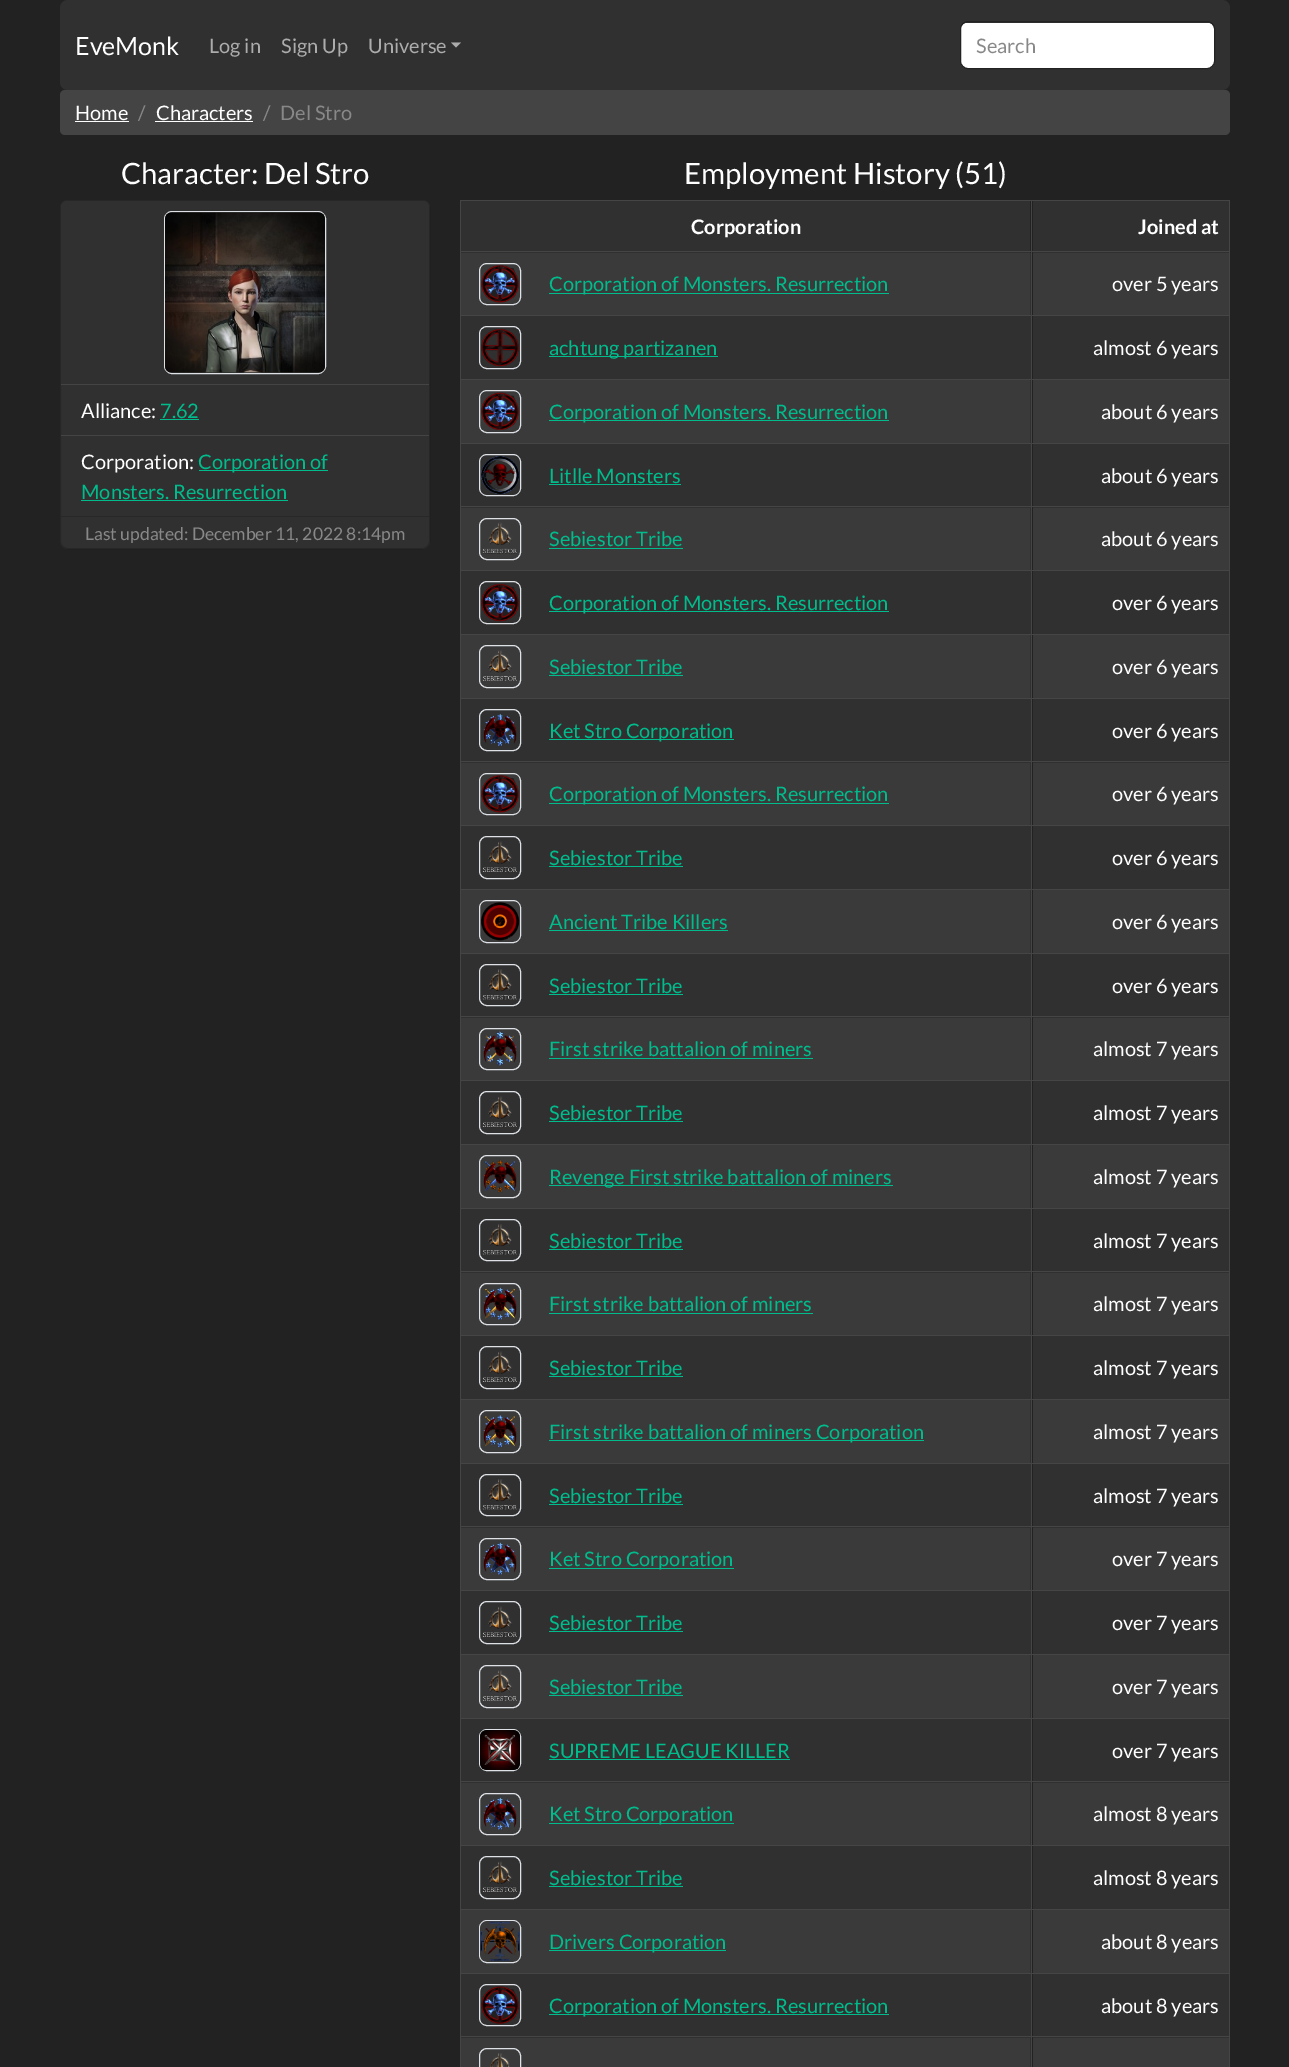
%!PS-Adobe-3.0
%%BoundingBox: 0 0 1289 2067
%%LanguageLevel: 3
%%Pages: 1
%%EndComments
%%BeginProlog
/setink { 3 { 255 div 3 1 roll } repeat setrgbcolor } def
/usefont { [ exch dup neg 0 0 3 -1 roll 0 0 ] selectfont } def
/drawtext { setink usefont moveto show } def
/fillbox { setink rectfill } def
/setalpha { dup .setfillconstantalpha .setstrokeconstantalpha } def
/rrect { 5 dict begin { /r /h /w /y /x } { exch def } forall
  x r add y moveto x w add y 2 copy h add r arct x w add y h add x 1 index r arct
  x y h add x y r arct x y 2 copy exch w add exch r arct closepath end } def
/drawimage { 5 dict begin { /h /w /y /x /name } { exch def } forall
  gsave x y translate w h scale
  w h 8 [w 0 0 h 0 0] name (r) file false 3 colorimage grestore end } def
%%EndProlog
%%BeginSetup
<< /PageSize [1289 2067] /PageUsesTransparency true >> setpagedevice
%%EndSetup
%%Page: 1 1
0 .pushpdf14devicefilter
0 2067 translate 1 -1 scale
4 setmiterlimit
0 0 1289 2067 34 34 34 fillbox
48 48 48 setink
60 0 1170 90 8 rrect fill
(EveMonk) 75 55 /Lato-Regular 25 255 255 255 drawtext
(Log in) 209 53 /Lato-Regular 20 172 172 172 drawtext
(Sign Up) 281 53 /Lato-Regular 20 172 172 172 drawtext
(Universe) 368 53 /Lato-Regular 20 172 172 172 drawtext
451 42.5 moveto 461 42.5 lineto 456 47.5 lineto closepath fill
255 255 255 setink
961 23 253 45 6 rrect fill
34 34 34 setink
960.5 21.5 254 47 7.5 rrect stroke
(Search) 976 53 /Lato-Regular 20 136 136 136 drawtext
68 68 68 setink
60 90 1170 45 5 rrect fill
(Home) 75 120 /Lato-Regular 20 255 255 255 drawtext
75 121 54 1 255 255 255 fillbox
(/) 138 120 /Lato-Regular 20 136 136 136 drawtext
(Characters) 156 120 /Lato-Regular 20 255 255 255 drawtext
155 121 98 1 255 255 255 fillbox
(/) 263 120 /Lato-Regular 20 136 136 136 drawtext
(Del Stro) 280 120 /Lato-Regular 20 136 136 136 drawtext
(Character: Del Stro) 121 184 /Lato-Regular 29.4 255 255 255 drawtext
48 48 48 setink
60 200 370 349 8 rrect fill
0.18 setalpha
0 0 0 setink
60.5 200.5 369 348 7.5 rrect stroke
1 setalpha
61 516 368 1 40 40 40 fillbox
48 48 48 setink
67 201 moveto 423 201 lineto 426.5 201 429 203.5 429 207 curveto 429 384 lineto 61 384 lineto 61 207 lineto 61 203.5 63.5 201 67 201 curveto closepath fill
61 384 368 1 68 68 68 fillbox
222 226 230 setink
164.5 211.5 161 162 7.5 rrect stroke
(assets/img1.rgb) 165 212 160 161 drawimage
61 435 368 1 68 68 68 fillbox
(Alliance:) 81 418 /Lato-Regular 20 255 255 255 drawtext
(7.62) 160 418 /Lato-Regular 20 0 188 140 drawtext
160 419 39 1 0 188 140 fillbox
(Corporation:) 81 469 /Lato-Regular 20 255 255 255 drawtext
199 470 129 1 0 188 140 fillbox
(Corporation of) 198 469 /Lato-Regular 20 0 188 140 drawtext
(Monsters. Resurrection) 81 499 /Lato-Regular 20 0 188 140 drawtext
81 500 207 1 0 188 140 fillbox
(Last updated: December 11, 2022 8:14pm) 85 540 /Lato-Regular 17.5 136 136 136 drawtext
(Employment History \(51\)) 684 184 /Lato-Regular 29.4 255 255 255 drawtext
460 200 770 1 69 69 69 fillbox
461 201 569 52 48 48 48 fillbox
(Corporation) 691 234 /Lato-Bold 20 255 255 255 drawtext
1033 201 196 52 48 48 48 fillbox
(Joined at) 1138 234 /Lato-Bold 20 255 255 255 drawtext
461 1974 570 64 48 48 48 fillbox
1033 1974 196 64 48 48 48 fillbox
460 2036 770 1 69 69 69 fillbox
461 2038 569 29 58 58 58 fillbox
460 251 770 1 69 69 69 fillbox
460 315 770 1 69 69 69 fillbox
460 379 770 1 69 69 69 fillbox
460 443 770 1 69 69 69 fillbox
461 444 570 64 48 48 48 fillbox
1033 444 196 64 48 48 48 fillbox
460 506 770 1 69 69 69 fillbox
460 570 770 1 69 69 69 fillbox
460 634 770 1 69 69 69 fillbox
460 698 770 1 69 69 69 fillbox
461 699 570 64 48 48 48 fillbox
1033 699 196 64 48 48 48 fillbox
460 761 770 1 69 69 69 fillbox
460 825 770 1 69 69 69 fillbox
460 889 770 1 69 69 69 fillbox
460 953 770 1 69 69 69 fillbox
461 954 570 64 48 48 48 fillbox
1033 954 196 64 48 48 48 fillbox
460 1016 770 1 69 69 69 fillbox
460 1080 770 1 69 69 69 fillbox
460 1144 770 1 69 69 69 fillbox
460 1208 770 1 69 69 69 fillbox
461 1209 570 64 48 48 48 fillbox
1033 1209 196 64 48 48 48 fillbox
460 1271 770 1 69 69 69 fillbox
460 1335 770 1 69 69 69 fillbox
460 1399 770 1 69 69 69 fillbox
460 1463 770 1 69 69 69 fillbox
461 1464 570 64 48 48 48 fillbox
1033 1464 196 64 48 48 48 fillbox
460 1526 770 1 69 69 69 fillbox
460 1590 770 1 69 69 69 fillbox
460 1654 770 1 69 69 69 fillbox
460 1718 770 1 69 69 69 fillbox
461 1719 570 64 48 48 48 fillbox
1033 1719 196 64 48 48 48 fillbox
460 1781 770 1 69 69 69 fillbox
460 1845 770 1 69 69 69 fillbox
460 1909 770 1 69 69 69 fillbox
460 1973 770 1 69 69 69 fillbox
460 200 1 1867 69 69 69 fillbox
222 226 230 setink
479.5 2048.5 41 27 7.5 rrect stroke
(assets/img2.rgb) 490 2053 20 14 drawimage
1030 2038 1 29 48 48 48 fillbox
1033 2038 196 29 58 58 58 fillbox
1229 200 1 1867 69 69 69 fillbox
1031 200 1 1867 69 69 69 fillbox
461 253 569 62 58 58 58 fillbox
222 226 230 setink
479.5 263.5 41 41 7.5 rrect stroke
(assets/img3.rgb) 481 265 38 38 drawimage
1030 253 1 62 48 48 48 fillbox
549 293 340 1 0 188 140 fillbox
(Corporation of Monsters. Resurrection) 549 291 /Lato-Regular 20 0 188 140 drawtext
1033 253 196 62 58 58 58 fillbox
(over 5 years) 1112 291 /Lato-Regular 20 255 255 255 drawtext
461 316 570 63 48 48 48 fillbox
222 226 230 setink
479.5 326.5 41 42 7.5 rrect stroke
(assets/img4.rgb) 481 329 38 38 drawimage
549 356 169 1 0 188 140 fillbox
(achtung partizanen) 549 355 /Lato-Regular 20 0 188 140 drawtext
1033 316 196 63 48 48 48 fillbox
(almost 6 years) 1093 355 /Lato-Regular 20 255 255 255 drawtext
461 380 569 63 58 58 58 fillbox
222 226 230 setink
479.5 390.5 41 42 7.5 rrect stroke
(assets/img5.rgb) 481 392 38 38 drawimage
1030 380 1 63 48 48 48 fillbox
549 420 340 1 0 188 140 fillbox
(Corporation of Monsters. Resurrection) 549 419 /Lato-Regular 20 0 188 140 drawtext
1033 380 196 63 58 58 58 fillbox
(about 6 years) 1101 419 /Lato-Regular 20 255 255 255 drawtext
222 226 230 setink
479.5 454.5 41 41 7.5 rrect stroke
(assets/img6.rgb) 481 456 39 39 drawimage
(Litlle Monsters) 549 483 /Lato-Regular 20 0 188 140 drawtext
549 484 132 1 0 188 140 fillbox
(about 6 years) 1101 483 /Lato-Regular 20 255 255 255 drawtext
461 508 569 62 58 58 58 fillbox
222 226 230 setink
479.5 518.5 41 41 7.5 rrect stroke
(assets/img7.rgb) 482 522 35 32 drawimage
1030 508 1 62 48 48 48 fillbox
(Sebiestor Tribe) 549 546 /Lato-Regular 20 0 188 140 drawtext
549 548 134 1 0 188 140 fillbox
1033 508 196 62 58 58 58 fillbox
(about 6 years) 1101 546 /Lato-Regular 20 255 255 255 drawtext
461 571 570 63 48 48 48 fillbox
222 226 230 setink
479.5 581.5 41 42 7.5 rrect stroke
(assets/img8.rgb) 481 584 38 38 drawimage
549 611 340 1 0 188 140 fillbox
(Corporation of Monsters. Resurrection) 549 610 /Lato-Regular 20 0 188 140 drawtext
1033 571 196 63 48 48 48 fillbox
(over 6 years) 1112 610 /Lato-Regular 20 255 255 255 drawtext
461 635 569 63 58 58 58 fillbox
222 226 230 setink
479.5 645.5 41 42 7.5 rrect stroke
(assets/img9.rgb) 482 650 35 31 drawimage
1030 635 1 63 48 48 48 fillbox
(Sebiestor Tribe) 549 674 /Lato-Regular 20 0 188 140 drawtext
549 675 134 1 0 188 140 fillbox
1033 635 196 63 58 58 58 fillbox
(over 6 years) 1112 674 /Lato-Regular 20 255 255 255 drawtext
222 226 230 setink
479.5 709.5 41 41 7.5 rrect stroke
(assets/img10.rgb) 483 713 34 34 drawimage
549 739 185 1 0 188 140 fillbox
(Ket Stro Corporation) 549 738 /Lato-Regular 20 0 188 140 drawtext
(over 6 years) 1112 738 /Lato-Regular 20 255 255 255 drawtext
461 763 569 62 58 58 58 fillbox
222 226 230 setink
479.5 773.5 41 41 7.5 rrect stroke
(assets/img11.rgb) 481 775 38 38 drawimage
1030 763 1 62 48 48 48 fillbox
549 803 340 1 0 188 140 fillbox
(Corporation of Monsters. Resurrection) 549 801 /Lato-Regular 20 0 188 140 drawtext
1033 763 196 62 58 58 58 fillbox
(over 6 years) 1112 801 /Lato-Regular 20 255 255 255 drawtext
461 826 570 63 48 48 48 fillbox
222 226 230 setink
479.5 836.5 41 42 7.5 rrect stroke
(assets/img12.rgb) 482 841 35 32 drawimage
(Sebiestor Tribe) 549 865 /Lato-Regular 20 0 188 140 drawtext
549 866 134 1 0 188 140 fillbox
1033 826 196 63 48 48 48 fillbox
(over 6 years) 1112 865 /Lato-Regular 20 255 255 255 drawtext
461 890 569 63 58 58 58 fillbox
222 226 230 setink
479.5 900.5 41 42 7.5 rrect stroke
(assets/img13.rgb) 481 902 39 39 drawimage
1030 890 1 63 48 48 48 fillbox
(Ancient Tribe Killers) 549 929 /Lato-Regular 20 0 188 140 drawtext
549 930 179 1 0 188 140 fillbox
1033 890 196 63 58 58 58 fillbox
(over 6 years) 1112 929 /Lato-Regular 20 255 255 255 drawtext
222 226 230 setink
479.5 964.5 41 41 7.5 rrect stroke
(assets/img14.rgb) 482 969 35 31 drawimage
(Sebiestor Tribe) 549 993 /Lato-Regular 20 0 188 140 drawtext
549 994 134 1 0 188 140 fillbox
(over 6 years) 1112 993 /Lato-Regular 20 255 255 255 drawtext
461 1018 569 62 58 58 58 fillbox
222 226 230 setink
479.5 1028.5 41 41 7.5 rrect stroke
(assets/img15.rgb) 483 1031 34 35 drawimage
1030 1018 1 62 48 48 48 fillbox
(First strike battalion of miners) 549 1056 /Lato-Regular 20 0 188 140 drawtext
549 1058 264 1 0 188 140 fillbox
1033 1018 196 62 58 58 58 fillbox
(almost 7 years) 1093 1056 /Lato-Regular 20 255 255 255 drawtext
461 1081 570 63 48 48 48 fillbox
222 226 230 setink
479.5 1091.5 41 42 7.5 rrect stroke
(assets/img12.rgb) 482 1096 35 32 drawimage
(Sebiestor Tribe) 549 1120 /Lato-Regular 20 0 188 140 drawtext
549 1121 134 1 0 188 140 fillbox
1033 1081 196 63 48 48 48 fillbox
(almost 7 years) 1093 1120 /Lato-Regular 20 255 255 255 drawtext
461 1145 569 63 58 58 58 fillbox
222 226 230 setink
479.5 1155.5 41 42 7.5 rrect stroke
(assets/img16.rgb) 483 1159 34 34 drawimage
1030 1145 1 63 48 48 48 fillbox
549 1185 344 1 0 188 140 fillbox
(Revenge First strike battalion of miners) 549 1184 /Lato-Regular 20 0 188 140 drawtext
1033 1145 196 63 58 58 58 fillbox
(almost 7 years) 1093 1184 /Lato-Regular 20 255 255 255 drawtext
222 226 230 setink
479.5 1219.5 41 41 7.5 rrect stroke
(assets/img14.rgb) 482 1224 35 31 drawimage
(Sebiestor Tribe) 549 1248 /Lato-Regular 20 0 188 140 drawtext
549 1249 134 1 0 188 140 fillbox
(almost 7 years) 1093 1248 /Lato-Regular 20 255 255 255 drawtext
461 1273 569 62 58 58 58 fillbox
222 226 230 setink
479.5 1283.5 41 41 7.5 rrect stroke
(assets/img17.rgb) 483 1287 34 33 drawimage
1030 1273 1 62 48 48 48 fillbox
(First strike battalion of miners) 549 1311 /Lato-Regular 20 0 188 140 drawtext
549 1313 264 1 0 188 140 fillbox
1033 1273 196 62 58 58 58 fillbox
(almost 7 years) 1093 1311 /Lato-Regular 20 255 255 255 drawtext
461 1336 570 63 48 48 48 fillbox
222 226 230 setink
479.5 1346.5 41 42 7.5 rrect stroke
(assets/img12.rgb) 482 1351 35 32 drawimage
(Sebiestor Tribe) 549 1375 /Lato-Regular 20 0 188 140 drawtext
549 1376 134 1 0 188 140 fillbox
1033 1336 196 63 48 48 48 fillbox
(almost 7 years) 1093 1375 /Lato-Regular 20 255 255 255 drawtext
461 1400 569 63 58 58 58 fillbox
222 226 230 setink
479.5 1410.5 41 42 7.5 rrect stroke
(assets/img18.rgb) 483 1415 34 33 drawimage
1030 1400 1 63 48 48 48 fillbox
549 1440 375 1 0 188 140 fillbox
(First strike battalion of miners Corporation) 549 1439 /Lato-Regular 20 0 188 140 drawtext
1033 1400 196 63 58 58 58 fillbox
(almost 7 years) 1093 1439 /Lato-Regular 20 255 255 255 drawtext
222 226 230 setink
479.5 1474.5 41 41 7.5 rrect stroke
(assets/img14.rgb) 482 1479 35 31 drawimage
(Sebiestor Tribe) 549 1503 /Lato-Regular 20 0 188 140 drawtext
549 1504 134 1 0 188 140 fillbox
(almost 7 years) 1093 1503 /Lato-Regular 20 255 255 255 drawtext
461 1528 569 62 58 58 58 fillbox
222 226 230 setink
479.5 1538.5 41 41 7.5 rrect stroke
(assets/img19.rgb) 483 1542 34 33 drawimage
1030 1528 1 62 48 48 48 fillbox
549 1568 185 1 0 188 140 fillbox
(Ket Stro Corporation) 549 1566 /Lato-Regular 20 0 188 140 drawtext
1033 1528 196 62 58 58 58 fillbox
(over 7 years) 1112 1566 /Lato-Regular 20 255 255 255 drawtext
461 1591 570 63 48 48 48 fillbox
222 226 230 setink
479.5 1601.5 41 42 7.5 rrect stroke
(assets/img12.rgb) 482 1606 35 32 drawimage
(Sebiestor Tribe) 549 1630 /Lato-Regular 20 0 188 140 drawtext
549 1631 134 1 0 188 140 fillbox
1033 1591 196 63 48 48 48 fillbox
(over 7 years) 1112 1630 /Lato-Regular 20 255 255 255 drawtext
461 1655 569 63 58 58 58 fillbox
222 226 230 setink
479.5 1665.5 41 42 7.5 rrect stroke
(assets/img9.rgb) 482 1670 35 31 drawimage
1030 1655 1 63 48 48 48 fillbox
(Sebiestor Tribe) 549 1694 /Lato-Regular 20 0 188 140 drawtext
549 1695 134 1 0 188 140 fillbox
1033 1655 196 63 58 58 58 fillbox
(over 7 years) 1112 1694 /Lato-Regular 20 255 255 255 drawtext
222 226 230 setink
479.5 1729.5 41 41 7.5 rrect stroke
(assets/img20.rgb) 480 1730 40 40 drawimage
(SUPREME LEAGUE KILLER) 549 1758 /Lato-Regular 20 0 188 140 drawtext
549 1759 241 1 0 188 140 fillbox
(over 7 years) 1112 1758 /Lato-Regular 20 255 255 255 drawtext
461 1783 569 62 58 58 58 fillbox
222 226 230 setink
479.5 1793.5 41 41 7.5 rrect stroke
(assets/img19.rgb) 483 1797 34 33 drawimage
1030 1783 1 62 48 48 48 fillbox
549 1823 185 1 0 188 140 fillbox
(Ket Stro Corporation) 549 1821 /Lato-Regular 20 0 188 140 drawtext
1033 1783 196 62 58 58 58 fillbox
(almost 8 years) 1093 1821 /Lato-Regular 20 255 255 255 drawtext
461 1846 570 63 48 48 48 fillbox
222 226 230 setink
479.5 1856.5 41 42 7.5 rrect stroke
(assets/img21.rgb) 482 1861 35 32 drawimage
(Sebiestor Tribe) 549 1885 /Lato-Regular 20 0 188 140 drawtext
549 1886 134 1 0 188 140 fillbox
1033 1846 196 63 48 48 48 fillbox
(almost 8 years) 1093 1885 /Lato-Regular 20 255 255 255 drawtext
461 1910 569 63 58 58 58 fillbox
222 226 230 setink
479.5 1920.5 41 42 7.5 rrect stroke
(assets/img22.rgb) 480 1921 40 40 drawimage
1030 1910 1 63 48 48 48 fillbox
549 1950 177 1 0 188 140 fillbox
(Drivers Corporation) 549 1949 /Lato-Regular 20 0 188 140 drawtext
1033 1910 196 63 58 58 58 fillbox
(about 8 years) 1101 1949 /Lato-Regular 20 255 255 255 drawtext
222 226 230 setink
479.5 1984.5 41 41 7.5 rrect stroke
(assets/img23.rgb) 481 1986 38 38 drawimage
549 2014 340 1 0 188 140 fillbox
(Corporation of Monsters. Resurrection) 549 2013 /Lato-Regular 20 0 188 140 drawtext
(about 8 years) 1101 2013 /Lato-Regular 20 255 255 255 drawtext
.poppdf14devicefilter showpage
%%EOF
